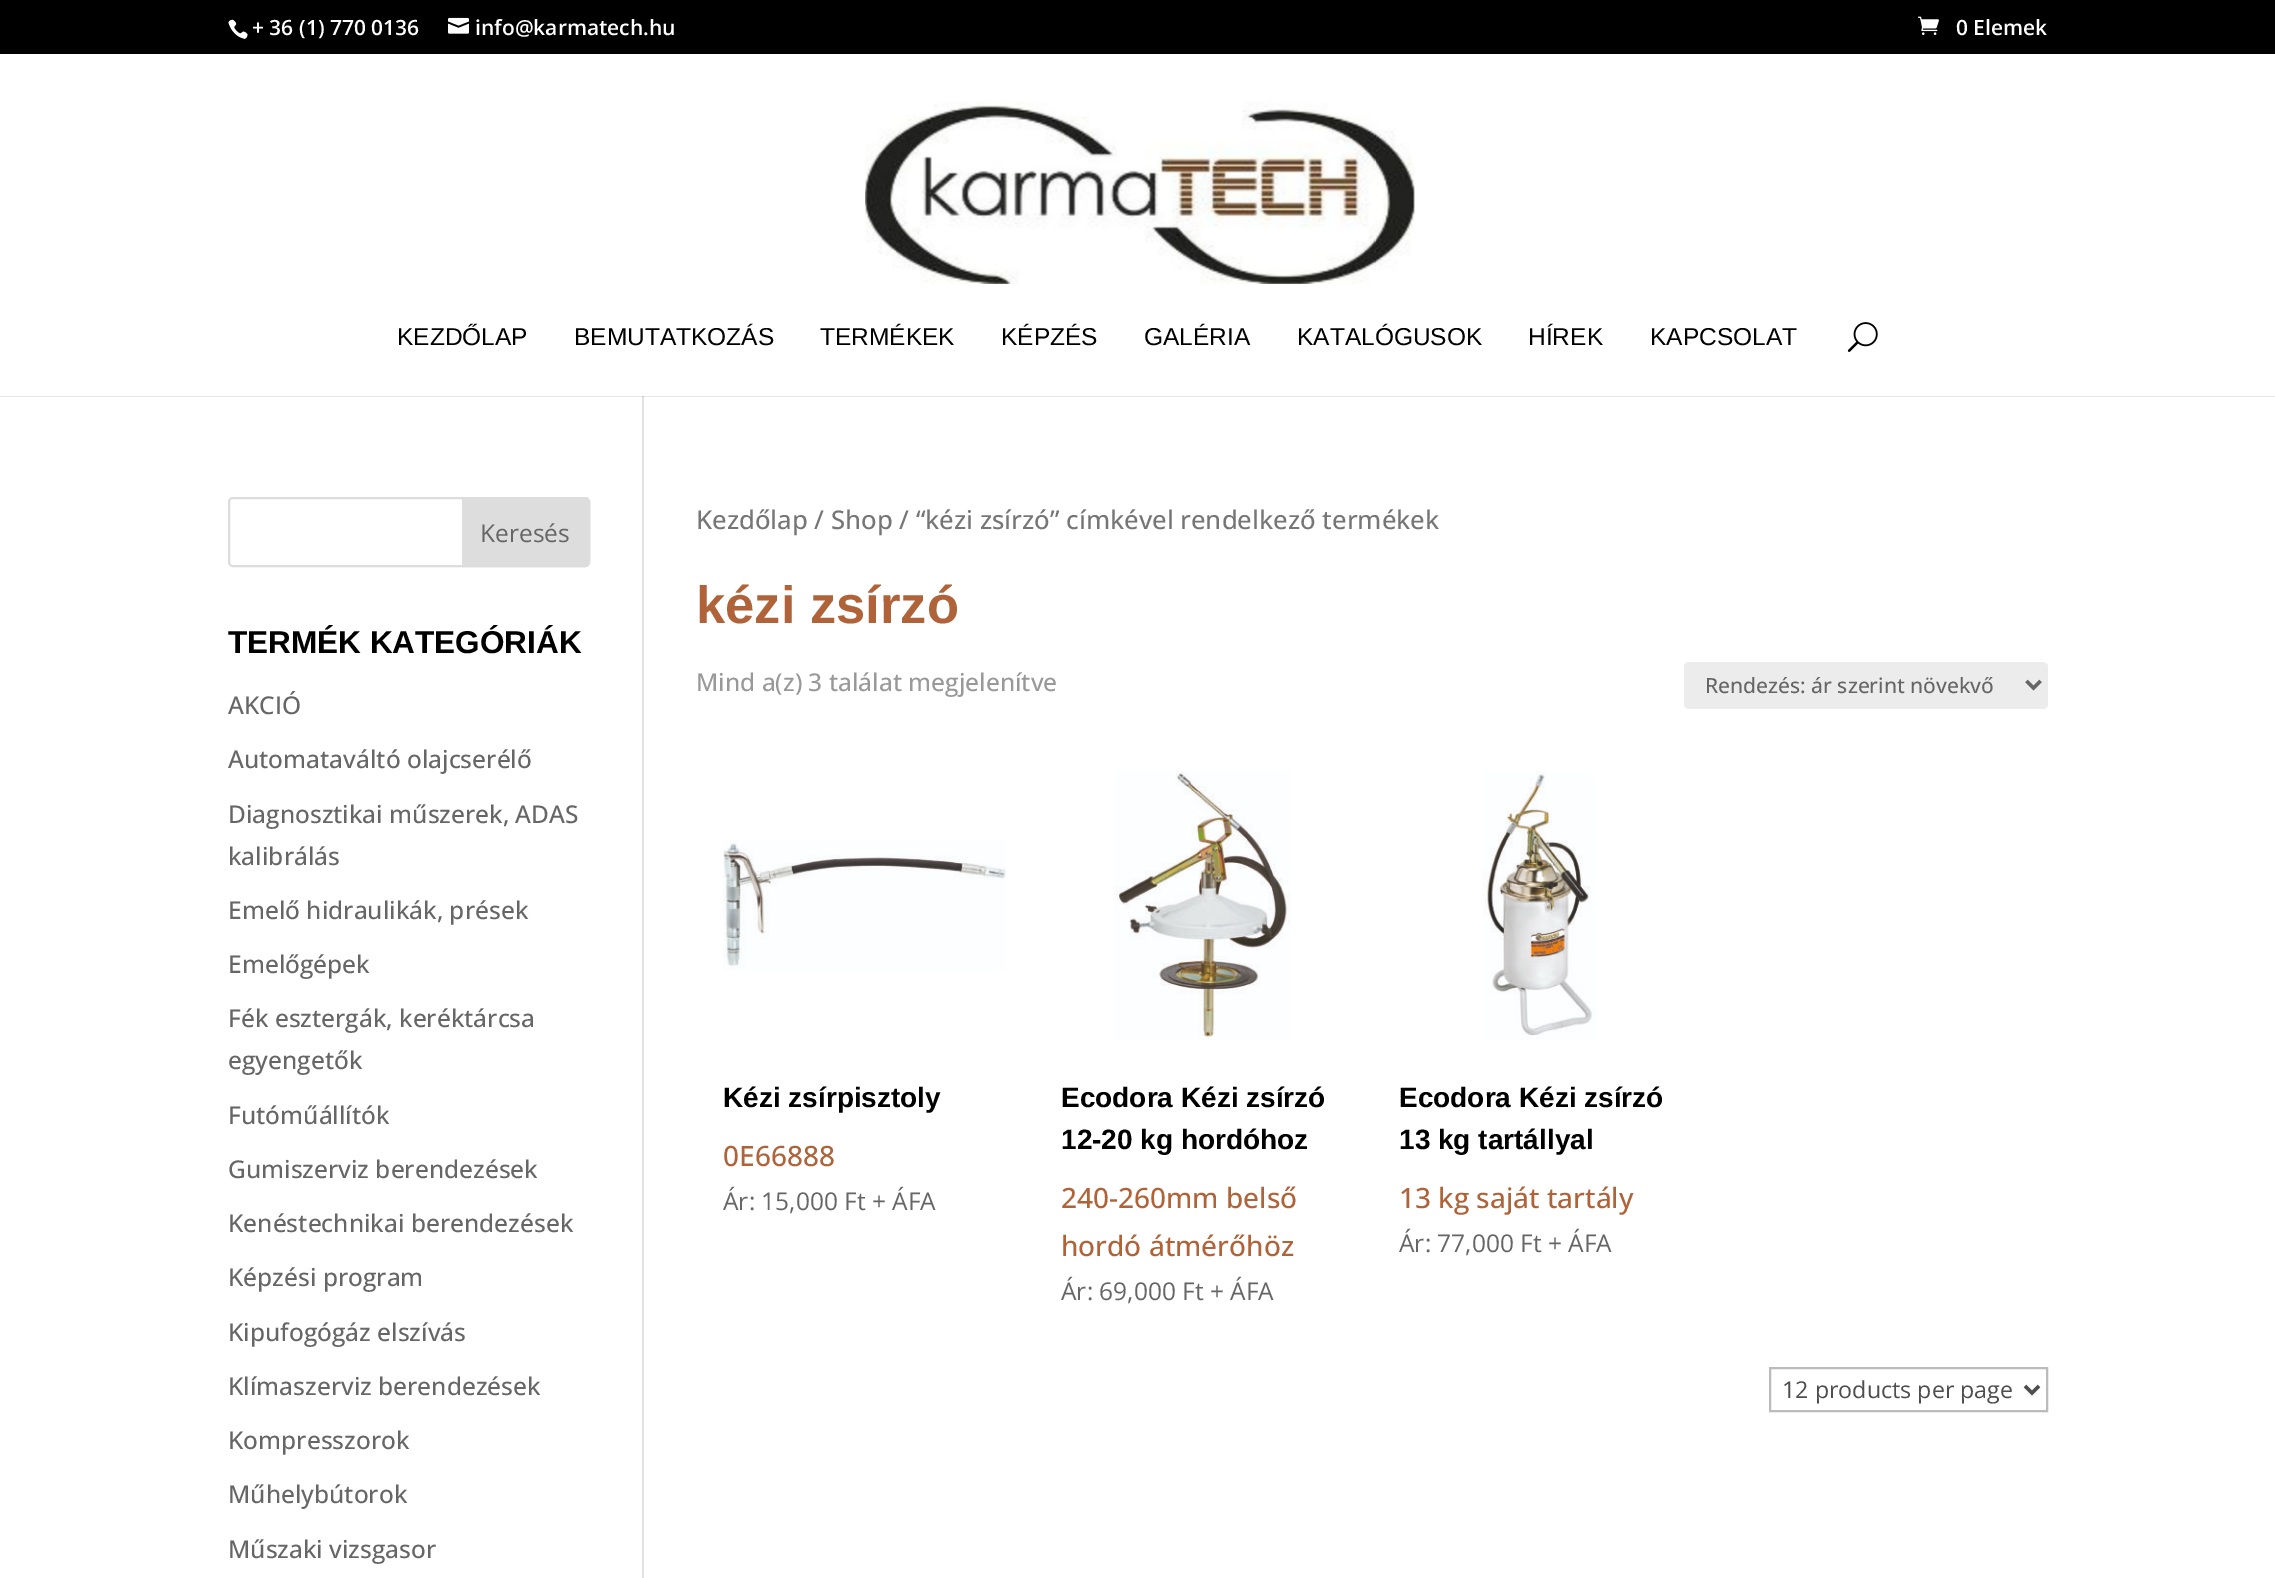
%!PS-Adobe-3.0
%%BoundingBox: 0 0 2275 1578
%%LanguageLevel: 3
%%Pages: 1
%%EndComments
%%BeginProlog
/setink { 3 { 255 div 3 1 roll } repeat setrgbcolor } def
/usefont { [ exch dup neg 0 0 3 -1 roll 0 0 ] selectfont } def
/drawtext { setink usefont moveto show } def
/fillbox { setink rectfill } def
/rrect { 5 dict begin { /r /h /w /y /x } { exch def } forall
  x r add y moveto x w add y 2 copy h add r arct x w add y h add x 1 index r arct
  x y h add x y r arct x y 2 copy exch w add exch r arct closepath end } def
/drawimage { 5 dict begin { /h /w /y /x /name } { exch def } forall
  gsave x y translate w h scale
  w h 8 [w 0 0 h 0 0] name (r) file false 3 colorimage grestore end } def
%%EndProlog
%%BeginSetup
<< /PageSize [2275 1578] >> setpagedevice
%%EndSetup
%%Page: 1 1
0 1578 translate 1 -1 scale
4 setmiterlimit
0 0 2275 1578 255 255 255 fillbox
0 396 2275 1 230 230 230 fillbox
0 0 2275 54 0 0 0 fillbox
(assets/img1.rgb) 228 19 20 20 drawimage
(+ 36 \(1\) 770 0136) 252 35 /OpenSans-SemiBold 21 255 255 255 drawtext
(assets/img2.rgb) 448 17 21 17 drawimage
(info@karmatech.hu) 475 35 /OpenSans-SemiBold 21 255 255 255 drawtext
(assets/img3.rgb) 1918 16 21 19 drawimage
(0 Elemek) 1956 35 /OpenSans-SemiBold 21 255 255 255 drawtext
(assets/img4.rgb) 865 101 550 183 drawimage
(KEZDŐLAP) 397 345 /LiberationSans-Regular 24.5 0 0 0 drawtext
(BEMUTATKOZÁS) 574 345 /LiberationSans-Regular 24.5 0 0 0 drawtext
(TERMÉKEK) 820 345 /LiberationSans-Regular 24.5 0 0 0 drawtext
(KÉPZÉS) 1001 345 /LiberationSans-Regular 24.5 0 0 0 drawtext
(GALÉRIA) 1144 345 /LiberationSans-Regular 24.5 0 0 0 drawtext
(KATALÓGUSOK) 1297 345 /LiberationSans-Regular 24.5 0 0 0 drawtext
(HÍREK) 1528 345 /LiberationSans-Regular 24.5 0 0 0 drawtext
(KAPCSOLAT) 1650 345 /LiberationSans-Regular 24.5 0 0 0 drawtext
(assets/img5.rgb) 1847 322 31 30 drawimage
642 396 2 1182 226 226 226 fillbox
642 396 2 1 203 203 203 fillbox
221 221 221 setink
2 setlinewidth
229 498 360 68 4 rrect stroke
463 498 moveto 585 498 lineto 587 498 589 500 589 502 curveto 589 562 lineto 589 564 587 566 585 566 curveto 463 566 lineto closepath gsave fill grestore
stroke
(Keresés) 480 542 /OpenSans-Regular 24.5 102 102 102 drawtext
(TERMÉK KATEGÓRIÁK) 228 653 /LiberationSans-Bold 31.5 0 0 0 drawtext
(AKCIÓ) 228 714 /OpenSans-Medium 24.5 102 102 102 drawtext
(Automataváltó olajcserélő) 228 768 /OpenSans-Medium 24.5 102 102 102 drawtext
(Diagnosztikai műszerek, ADAS) 228 823 /OpenSans-Medium 24.5 102 102 102 drawtext
(kalibrálás) 228 865 /OpenSans-Medium 24.5 102 102 102 drawtext
(Emelő hidraulikák, prések) 228 919 /OpenSans-Medium 24.5 102 102 102 drawtext
(Emelőgépek) 228 973 /OpenSans-Medium 24.5 102 102 102 drawtext
(Fék esztergák, keréktárcsa) 228 1027 /OpenSans-Medium 24.5 102 102 102 drawtext
(egyengetők) 228 1069 /OpenSans-Medium 24.5 102 102 102 drawtext
(Futóműállítók) 228 1124 /OpenSans-Medium 24.5 102 102 102 drawtext
(Gumiszerviz berendezések) 228 1178 /OpenSans-Medium 24.5 102 102 102 drawtext
(Kenéstechnikai berendezések) 228 1232 /OpenSans-Medium 24.5 102 102 102 drawtext
(Képzési program) 228 1286 /OpenSans-Medium 24.5 102 102 102 drawtext
(Kipufogógáz elszívás) 228 1341 /OpenSans-Medium 24.5 102 102 102 drawtext
(Klímaszerviz berendezések) 228 1395 /OpenSans-Medium 24.5 102 102 102 drawtext
(Kompresszorok) 228 1449 /OpenSans-Medium 24.5 102 102 102 drawtext
(Műhelybútorok) 228 1503 /OpenSans-Medium 24.5 102 102 102 drawtext
(Műszaki vizsgasor) 228 1558 /OpenSans-Medium 24.5 102 102 102 drawtext
(Kezdőlap / Shop / “kézi zsírzó” címkével rendelkező termékek) 696 529 /OpenSans-Medium 25.75 118 118 118 drawtext
(kézi zsírzó) 696 623 /LiberationSans-Bold 52.5 176 99 57 drawtext
(Mind a\(z\) 3 találat megjelenítve) 696 691 /OpenSans-Medium 24.5 153 153 153 drawtext
236 236 236 setink
1684 662 364 47 5 rrect fill
102 102 102 setink
3.5 setlinewidth
2026.5 681 moveto 2033.5 688 lineto 2040.5 681 lineto stroke
(Rendezés: ár szerint növekvő) 1705 693 /OpenSans-Medium 21 102 102 102 drawtext
(assets/img6.rgb) 723 840 283 131 drawimage
(Kézi zsírpisztoly) 723 1107 /LiberationSans-Bold 28 0 0 0 drawtext
(0E66888) 723 1166 /OpenSans-Medium 28 176 99 57 drawtext
(Ár: 15,000 Ft + ÁFA) 723 1210 /OpenSans-Regular 24.5 102 102 102 drawtext
(assets/img7.rgb) 1114 770 177 270 drawimage
(Ecodora Kézi zsírzó) 1061 1107 /LiberationSans-Bold 28 0 0 0 drawtext
(12-20 kg hordóhoz) 1061 1149 /LiberationSans-Bold 28 0 0 0 drawtext
(240-260mm belső) 1061 1208 /OpenSans-Medium 28 176 99 57 drawtext
(hordó átmérőhöz) 1061 1256 /OpenSans-Medium 28 176 99 57 drawtext
(Ár: 69,000 Ft + ÁFA) 1061 1300 /OpenSans-Regular 24.5 102 102 102 drawtext
(assets/img8.rgb) 1483 771 113 269 drawimage
(Ecodora Kézi zsírzó) 1399 1107 /LiberationSans-Bold 28 0 0 0 drawtext
(13 kg tartállyal) 1399 1149 /LiberationSans-Bold 28 0 0 0 drawtext
(13 kg saját tartály) 1399 1208 /OpenSans-Medium 28 176 99 57 drawtext
(Ár: 77,000 Ft + ÁFA) 1399 1252 /OpenSans-Regular 24.5 102 102 102 drawtext
187 187 187 setink
2 setlinewidth
1770 1368 277 43 rectstroke
78 78 78 setink
3.5 setlinewidth
2025 1386 moveto 2032 1393 lineto 2039 1386 lineto stroke
(12 products per page) 1782 1398 /OpenSans-Regular 23.25 78 78 78 drawtext
showpage
%%EOF
